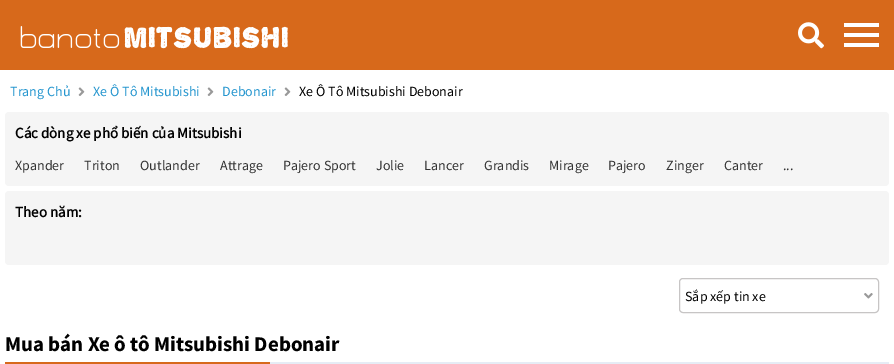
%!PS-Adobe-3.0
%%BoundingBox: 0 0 894 364
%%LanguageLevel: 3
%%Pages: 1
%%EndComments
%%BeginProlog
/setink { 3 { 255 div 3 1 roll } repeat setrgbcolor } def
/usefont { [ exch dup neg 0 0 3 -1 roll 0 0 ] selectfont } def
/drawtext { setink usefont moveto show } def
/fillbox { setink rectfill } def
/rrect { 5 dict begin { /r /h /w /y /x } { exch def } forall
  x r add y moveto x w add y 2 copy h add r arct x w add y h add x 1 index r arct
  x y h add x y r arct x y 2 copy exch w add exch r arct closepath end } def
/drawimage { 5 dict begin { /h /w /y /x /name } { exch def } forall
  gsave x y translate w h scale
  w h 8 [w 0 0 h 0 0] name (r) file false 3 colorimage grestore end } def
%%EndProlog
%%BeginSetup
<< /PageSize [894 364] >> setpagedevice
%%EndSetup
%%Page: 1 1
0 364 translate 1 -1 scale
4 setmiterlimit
0 0 894 364 215 105 27 fillbox
(assets/img1.rgb) 20 26 268 23 drawimage
(assets/img2.rgb) 798 22 26 27 drawimage
844 23 35 4 255 255 255 fillbox
844 33 35 4 255 255 255 fillbox
844 43 35 4 255 255 255 fillbox
0 70 894 294 255 255 255 fillbox
(Trang Chủ) 10 96 /SourceSansPro-Regular 14 37 150 207 drawtext
(assets/img3.rgb) 78 87 7 9 drawimage
(Xe Ô Tô Mitsubishi) 93 96 /SourceSansPro-Regular 14 37 150 207 drawtext
(assets/img3.rgb) 207 87 7 9 drawimage
(Debonair) 222 96 /SourceSansPro-Regular 14 37 150 207 drawtext
(assets/img3.rgb) 284 87 7 9 drawimage
(Xe Ô Tô Mitsubishi Debonair) 299 96 /SourceSansPro-Regular 14 0 0 0 drawtext
245 245 245 setink
5 112 884 74 4 rrect fill
(Các dòng xe phổ biến của Mitsubishi) 15 138 /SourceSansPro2-Bold 15 0 0 0 drawtext
(Xpander) 15 170 /SourceSansPro-Regular 14 51 51 51 drawtext
(Triton) 84 170 /SourceSansPro-Regular 14 51 51 51 drawtext
(Outlander) 140 170 /SourceSansPro-Regular 14 51 51 51 drawtext
(Attrage) 220 170 /SourceSansPro-Regular 14 51 51 51 drawtext
(Pajero Sport) 283 170 /SourceSansPro-Regular 14 51 51 51 drawtext
(Jolie) 376 170 /SourceSansPro-Regular 14 51 51 51 drawtext
(Lancer) 424 170 /SourceSansPro-Regular 14 51 51 51 drawtext
(Grandis) 484 170 /SourceSansPro-Regular 14 51 51 51 drawtext
(Mirage) 549 170 /SourceSansPro-Regular 14 51 51 51 drawtext
(Pajero) 608 170 /SourceSansPro-Regular 14 51 51 51 drawtext
(Zinger) 666 170 /SourceSansPro-Regular 14 51 51 51 drawtext
(Canter) 724 170 /SourceSansPro-Regular 14 51 51 51 drawtext
(...) 783 170 /SourceSansPro-Regular 14 51 51 51 drawtext
245 245 245 setink
5 191 884 74 4 rrect fill
(Theo năm:) 15 217 /SourceSansPro2-Bold 15 0 0 0 drawtext
199 197 197 setink
679.5 278.5 199 34 3.5 rrect stroke
(Sắp xếp tin xe) 685 301 /SourceSansPro-Regular 14 0 0 0 drawtext
(assets/img4.rgb) 864 293 9 6 drawimage
(Mua bán Xe ô tô Mitsubishi Debonair) 5 351 /SourceSansPro-Bold 21 0 0 0 drawtext
270 362 619 2 230 236 245 fillbox
5 362 265 2 215 105 27 fillbox
showpage
%%EOF
